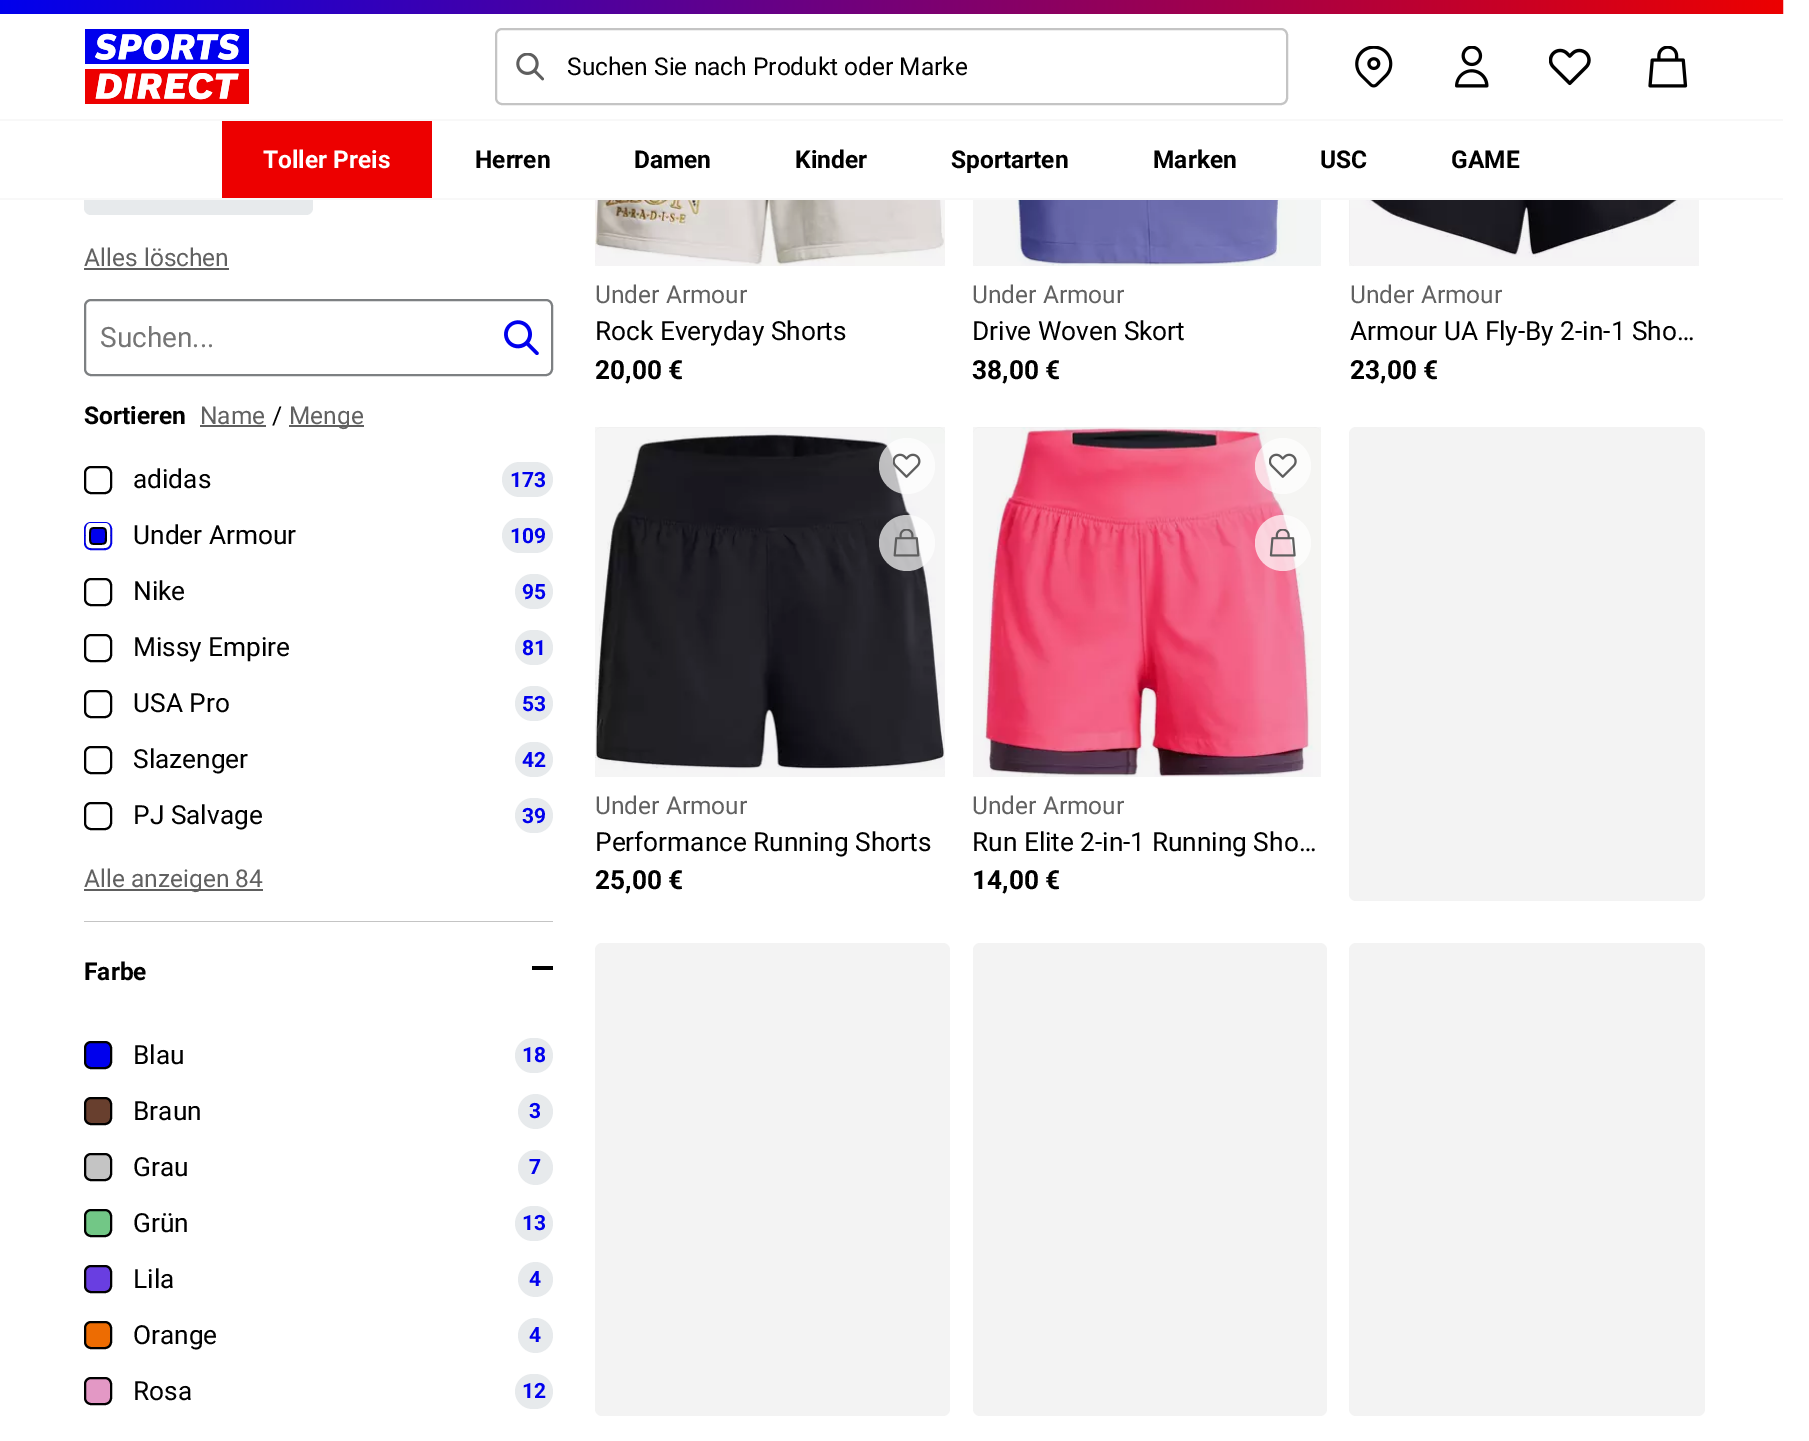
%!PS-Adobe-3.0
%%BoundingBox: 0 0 1809 1441
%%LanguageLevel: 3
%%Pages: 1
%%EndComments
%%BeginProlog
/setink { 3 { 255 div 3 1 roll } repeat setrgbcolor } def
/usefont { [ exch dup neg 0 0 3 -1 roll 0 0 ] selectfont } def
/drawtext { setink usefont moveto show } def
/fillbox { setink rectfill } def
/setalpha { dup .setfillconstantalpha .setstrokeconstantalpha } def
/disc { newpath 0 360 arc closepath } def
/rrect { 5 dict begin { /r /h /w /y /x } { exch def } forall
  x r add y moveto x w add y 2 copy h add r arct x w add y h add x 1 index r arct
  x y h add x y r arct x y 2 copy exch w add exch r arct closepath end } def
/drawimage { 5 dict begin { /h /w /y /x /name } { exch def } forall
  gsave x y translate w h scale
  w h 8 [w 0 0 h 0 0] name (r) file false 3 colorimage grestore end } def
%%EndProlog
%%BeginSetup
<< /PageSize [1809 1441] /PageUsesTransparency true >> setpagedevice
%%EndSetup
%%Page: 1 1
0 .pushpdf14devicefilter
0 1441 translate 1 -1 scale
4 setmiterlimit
0 0 1809 1441 255 255 255 fillbox
231 234 236 setink
84 145 229 70 7 rrect fill
245 245 245 setink
1349 -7 350 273 7 rrect fill
84 14 1615 184 255 255 255 fillbox
(assets/img1.rgb) 0 0 1784 14 drawimage
(assets/img2.rgb) 85 29 164 75 drawimage
196 196 196 setink
2 setlinewidth
496 29 791 75 6 rrect stroke
(assets/img3.rgb) 516 53 28 28 drawimage
(Suchen Sie nach Produkt oder Marke) 567 75 /Roboto-Regular 24.5 0 0 0 drawtext
(assets/img4.rgb) 1355 46 38 42 drawimage
(assets/img5.rgb) 1455 46 34 42 drawimage
(assets/img6.rgb) 1549 48 42 38 drawimage
(assets/img7.rgb) 1648 46 40 42 drawimage
0 119 1783 2 248 248 248 fillbox
0 198 1783 2 248 248 248 fillbox
222 121 210 77 237 0 0 fillbox
(Toller Preis) 263 168 /Roboto-Bold 24.5 255 255 255 drawtext
(Herren) 475 168 /Roboto-Bold 24.5 0 0 0 drawtext
(Damen) 634 168 /Roboto-Bold 24.5 0 0 0 drawtext
(Kinder) 795 168 /Roboto-Bold 24.5 0 0 0 drawtext
(Sportarten) 951 168 /Roboto-Bold 24.5 0 0 0 drawtext
(Marken) 1153 168 /Roboto-Bold 24.5 0 0 0 drawtext
(USC) 1320 168 /Roboto-Bold 24.5 0 0 0 drawtext
(GAME) 1451 168 /Roboto-Bold 24.5 0 0 0 drawtext
84 921 469 1 196 196 196 fillbox
(Alles löschen) 84 266 /Roboto-Regular 24.5 97 97 97 drawtext
84 268 145 2 94 94 94 fillbox
125 128 130 setink
85 300 467 75 6 rrect stroke
(Suchen...) 100 347 /Roboto-Regular 28 117 117 117 drawtext
(assets/img8.rgb) 504 320 35 35 drawimage
(Sortieren) 84 424 /Roboto-Bold 24.5 0 0 0 drawtext
(Name) 200 424 /Roboto-Regular 24.5 97 97 97 drawtext
200 425 66 2 94 94 94 fillbox
(/) 272 424 /Roboto-Regular 24.5 0 0 0 drawtext
289 425 75 2 94 94 94 fillbox
(Menge) 289 424 /Roboto-Regular 24.5 97 97 97 drawtext
0 0 0 setink
85 467 26 26 6 rrect stroke
(adidas) 133 488 /Roboto-Regular 26.25 0 0 0 drawtext
231 234 236 setink
502 462 51 35 17.5 rrect fill
(173) 510 487 /Roboto-Bold 21 0 0 237 drawtext
85 523 26 26 6 rrect gsave fill grestore
stroke
0 0 0 setink
91 523 moveto 84.5 523 86 531.5 86 535.5 curveto 86 540 84.5 548 91 548 curveto 94 548 104.5 548.5 107 547.5 curveto 111.5 545.5 110 539.5 110 535.5 curveto 110 531.5 111.5 523 105 523 curveto closepath 93 529 moveto 91 529 91 531 91 532.5 curveto 91 539.5 lineto 91 544.5 93.5 543 98 543 curveto 104.5 543 105 544 105 537.5 curveto 105 532.5 lineto 105 531 105 529 103 529 curveto closepath eofill
255 255 255 setink
91 523 moveto 84.5 523 86 531.5 86 535.5 curveto 86 540 84.5 548 91 548 curveto 94 548 104.5 548.5 107 547.5 curveto 111.5 545.5 110 539.5 110 535.5 curveto 110 531.5 111.5 523 105 523 curveto closepath 93 527 moveto 88 527 89 533 89 536 curveto 89 539.5 88 545 93 545 curveto 95.5 545 102.5 545.5 104.5 544.5 curveto 108 543.5 107 539 107 536 curveto 107 533 108 527 103 527 curveto closepath eofill
(Under Armour) 133 544 /Roboto-Regular 26.25 0 0 0 drawtext
231 234 236 setink
502 518 51 35 17.5 rrect fill
(109) 510 543 /Roboto-Bold 21 0 0 237 drawtext
0 0 0 setink
85 579 26 26 6 rrect stroke
(Nike) 133 600 /Roboto-Regular 26.25 0 0 0 drawtext
231 234 236 setink
515 574 38 35 17.5 rrect fill
(95) 522 599 /Roboto-Bold 21 0 0 237 drawtext
0 0 0 setink
85 635 26 26 6 rrect stroke
(Missy Empire) 133 656 /Roboto-Regular 26.25 0 0 0 drawtext
231 234 236 setink
515 630 38 35 17.5 rrect fill
(81) 522 655 /Roboto-Bold 21 0 0 237 drawtext
0 0 0 setink
85 691 26 26 6 rrect stroke
(USA Pro) 133 712 /Roboto-Regular 26.25 0 0 0 drawtext
231 234 236 setink
515 686 38 35 17.5 rrect fill
(53) 522 711 /Roboto-Bold 21 0 0 237 drawtext
0 0 0 setink
85 747 26 26 6 rrect stroke
(Slazenger) 133 768 /Roboto-Regular 26.25 0 0 0 drawtext
231 234 236 setink
515 742 38 35 17.5 rrect fill
(42) 522 767 /Roboto-Bold 21 0 0 237 drawtext
0 0 0 setink
85 803 26 26 6 rrect stroke
(PJ Salvage) 133 824 /Roboto-Regular 26.25 0 0 0 drawtext
231 234 236 setink
515 798 38 35 17.5 rrect fill
(39) 522 823 /Roboto-Bold 21 0 0 237 drawtext
84 889 179 2 94 94 94 fillbox
(Alle anzeigen 84) 84 887 /Roboto-Regular 24.5 97 97 97 drawtext
(Farbe) 84 980 /Roboto-Bold 24.5 0 0 0 drawtext
532 966 21 4 0 0 0 fillbox
0 0 237 setink
85 1042 26 26 6 rrect gsave fill grestore
0 0 0 setink
stroke
(Blau) 133 1064 /Roboto-Regular 26.25 0 0 0 drawtext
231 234 236 setink
515 1038 38 35 17.5 rrect fill
(18) 522 1062 /Roboto-Bold 21 0 0 237 drawtext
104 63 46 setink
85 1098 26 26 6 rrect gsave fill grestore
0 0 0 setink
stroke
(Braun) 133 1120 /Roboto-Regular 26.25 0 0 0 drawtext
231 234 236 setink
535.5 1111.5 17.5 disc fill
(3) 529 1118 /Roboto-Bold 21 0 0 237 drawtext
196 196 196 setink
85 1154 26 26 6 rrect gsave fill grestore
0 0 0 setink
stroke
(Grau) 133 1176 /Roboto-Regular 26.25 0 0 0 drawtext
231 234 236 setink
535.5 1167.5 17.5 disc fill
(7) 529 1174 /Roboto-Bold 21 0 0 237 drawtext
114 199 134 setink
85 1210 26 26 6 rrect gsave fill grestore
0 0 0 setink
stroke
(Grün) 133 1232 /Roboto-Regular 26.25 0 0 0 drawtext
231 234 236 setink
515 1206 38 35 17.5 rrect fill
(13) 522 1230 /Roboto-Bold 21 0 0 237 drawtext
105 62 225 setink
85 1266 26 26 6 rrect gsave fill grestore
0 0 0 setink
stroke
(Lila) 133 1288 /Roboto-Regular 26.25 0 0 0 drawtext
231 234 236 setink
535.5 1279.5 17.5 disc fill
(4) 529 1286 /Roboto-Bold 21 0 0 237 drawtext
237 108 2 setink
85 1322 26 26 6 rrect gsave fill grestore
0 0 0 setink
stroke
(Orange) 133 1344 /Roboto-Regular 26.25 0 0 0 drawtext
231 234 236 setink
535.5 1335.5 17.5 disc fill
(4) 529 1342 /Roboto-Bold 21 0 0 237 drawtext
227 152 197 setink
85 1378 26 26 6 rrect gsave fill grestore
0 0 0 setink
stroke
(Rosa) 133 1400 /Roboto-Regular 26.25 0 0 0 drawtext
231 234 236 setink
515 1374 38 35 17.5 rrect fill
(12) 522 1398 /Roboto-Bold 21 0 0 237 drawtext
(assets/img9.rgb) 595 200 350 66 drawimage
0.04 setalpha
595 200 350 66 0 0 0 fillbox
1 setalpha
(Under Armour) 595 303 /Roboto-Regular 24.5 97 97 97 drawtext
(Rock Everyday Shorts) 595 340 /Roboto-Regular 26.25 0 0 0 drawtext
(20,00 €) 595 379 /Roboto-Bold 26.25 0 0 0 drawtext
(assets/img10.rgb) 973 200 348 66 drawimage
0.04 setalpha
973 200 348 66 0 0 0 fillbox
1 setalpha
(Under Armour) 972 303 /Roboto-Regular 24.5 97 97 97 drawtext
(Drive Woven Skort) 972 340 /Roboto-Regular 26.25 0 0 0 drawtext
(38,00 €) 972 379 /Roboto-Bold 26.25 0 0 0 drawtext
(assets/img11.rgb) 1349 200 350 66 drawimage
0.04 setalpha
1349 200 350 66 0 0 0 fillbox
1 setalpha
(Under Armour) 1350 303 /Roboto-Regular 24.5 97 97 97 drawtext
(Armour UA Fly-By 2-in-1 Sho…) 1350 340 /Roboto-Regular 26.25 0 0 0 drawtext
(23,00 €) 1350 379 /Roboto-Bold 26.25 0 0 0 drawtext
245 245 245 setink
595 427 350 350 7 rrect fill
(assets/img14.rgb) 595 427 350 350 drawimage
0.04 setalpha
595 427 350 350 0 0 0 fillbox
0.7 setalpha
255 255 255 setink
907 466 28 disc fill
1 setalpha
(assets/img12.rgb) 893 453 28 25 drawimage
0.7 setalpha
907 543 28 disc fill
1 setalpha
(assets/img13.rgb) 893 529 27 28 drawimage
(Under Armour) 595 814 /Roboto-Regular 24.5 97 97 97 drawtext
(Performance Running Shorts) 595 851 /Roboto-Regular 26.25 0 0 0 drawtext
(25,00 €) 595 889 /Roboto-Bold 26.25 0 0 0 drawtext
245 245 245 setink
973 427 348 350 7 rrect fill
(assets/img17.rgb) 973 427 348 350 drawimage
0.04 setalpha
973 427 348 350 0 0 0 fillbox
0.7 setalpha
255 255 255 setink
1283 466 28 disc fill
1 setalpha
(assets/img15.rgb) 1269 453 28 25 drawimage
0.7 setalpha
1283 543 28 disc fill
1 setalpha
(assets/img16.rgb) 1269 529 27 28 drawimage
(Under Armour) 972 814 /Roboto-Regular 24.5 97 97 97 drawtext
(Run Elite 2-in-1 Running Sho…) 972 851 /Roboto-Regular 26.25 0 0 0 drawtext
(14,00 €) 972 889 /Roboto-Bold 26.25 0 0 0 drawtext
243 243 243 setink
1349 427 356 474 7 rrect fill
595 943 355 473 7 rrect fill
973 943 354 473 7 rrect fill
1349 943 356 473 7 rrect fill
.poppdf14devicefilter showpage
%%EOF
